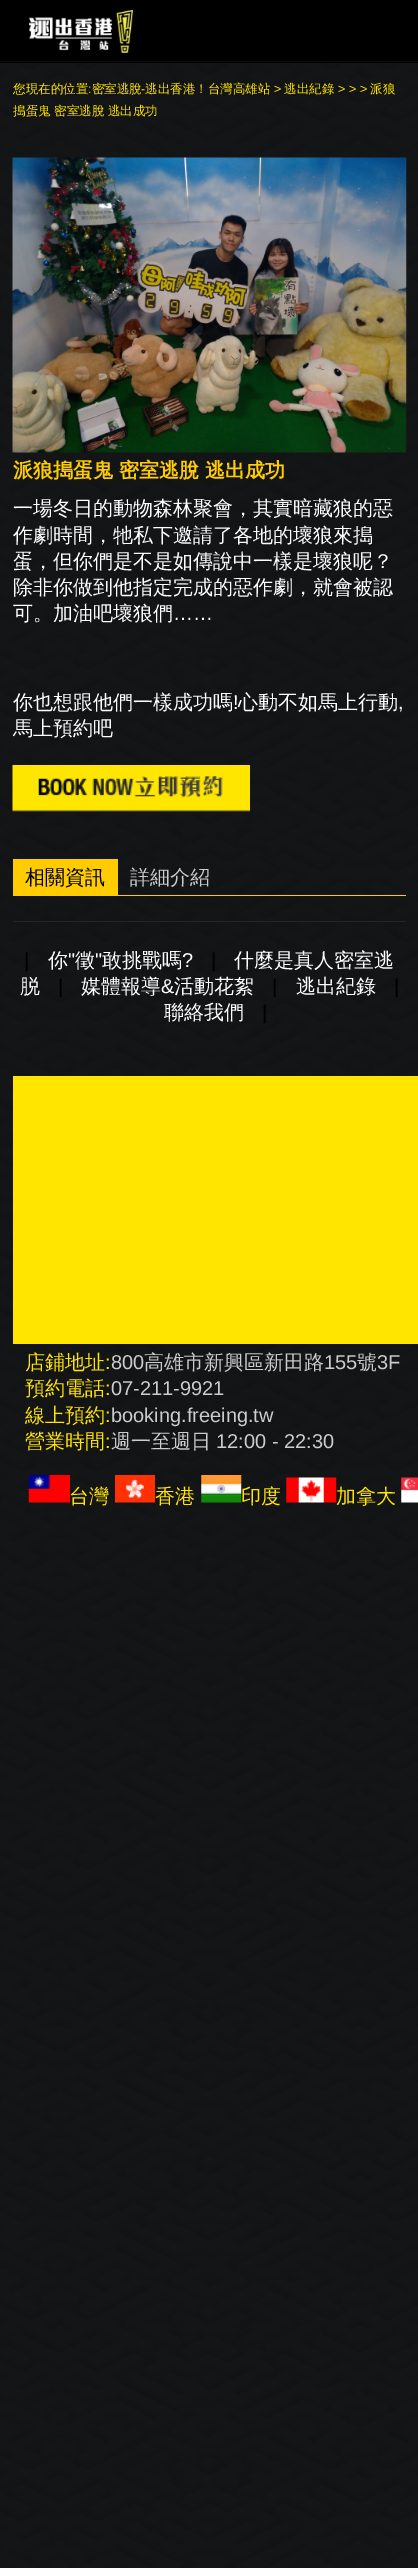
%!PS-Adobe-3.0
%%BoundingBox: 0 0 418 2568
%%LanguageLevel: 3
%%Pages: 1
%%EndComments
%%BeginProlog
/setink { 3 { 255 div 3 1 roll } repeat setrgbcolor } def
/usefont { [ exch dup neg 0 0 3 -1 roll 0 0 ] selectfont } def
/drawtext { setink usefont moveto show } def
/fillbox { setink rectfill } def
/drawimage { 5 dict begin { /h /w /y /x /name } { exch def } forall
  gsave x y translate w h scale
  w h 8 [w 0 0 h 0 0] name (r) file false 3 colorimage grestore end } def
%%EndProlog
%%BeginSetup
<< /PageSize [418 2568] >> setpagedevice
%%EndSetup
%%Page: 1 1
0 2568 translate 1 -1 scale
4 setmiterlimit
0 0 418 2568 255 255 255 fillbox
(assets/img1.rgb) 0 63 418 2505 drawimage
0 0 418 63 0 0 0 fillbox
0 61 418 1 15 15 15 fillbox
(assets/img2.rgb) 29 9 107 46 drawimage
(您現在的位置 密室逃脫) 13 93 /WenQuanYiZenHei-Medium 12.5 255 229 0 drawtext
(逃出香港！台灣高雄站) 145 93 /WenQuanYiZenHei-Medium 12.5 255 229 0 drawtext
(>) 274 93 /LiberationSans-Regular 12.5 255 229 0 drawtext
(逃出紀錄) 284 93 /WenQuanYiZenHei-Medium 12.5 255 229 0 drawtext
(> > >) 338 93 /LiberationSans-Regular 12.5 255 229 0 drawtext
(派狼) 370 93 /WenQuanYiZenHei-Medium 12.5 255 229 0 drawtext
(:) 88 93 /LiberationSans-Regular 12.5 255 229 0 drawtext
(-) 141 93 /LiberationSans-Regular 12.5 255 229 0 drawtext
(搗蛋鬼 密室逃脫 逃出成功) 13 115 /WenQuanYiZenHei-Medium 12.5 255 229 0 drawtext
(assets/img3.rgb) 12 157 395 296 drawimage
(派狼搗蛋鬼 密室逃脫 逃出成功) 13 477 /WenQuanYiZenHei-Bold 20 255 204 0 drawtext
(一場冬日的動物森林聚會，其實暗藏狼的惡) 13 515 /WenQuanYiZenHei-Medium 20 255 255 255 drawtext
(作劇時間，牠私下邀請了各地的壞狼來搗) 13 542 /WenQuanYiZenHei-Medium 20 255 255 255 drawtext
(蛋，但你們是不是如傳說中一樣是壞狼呢？) 13 568 /WenQuanYiZenHei-Medium 20 255 255 255 drawtext
(除非你做到他指定完成的惡作劇，就會被認) 13 594 /WenQuanYiZenHei-Medium 20 255 255 255 drawtext
(可。加油吧壞狼們) 13 620 /WenQuanYiZenHei-Medium 20 255 255 255 drawtext
(……) 173 620 /LiberationSans-Regular 20 255 255 255 drawtext
(你也想跟他們一樣成功嗎) 13 709 /WenQuanYiZenHei-Medium 20 255 255 255 drawtext
(!) 233 709 /LiberationSans-Regular 20 255 255 255 drawtext
(心動不如馬上行動) 238 709 /WenQuanYiZenHei-Medium 20 255 255 255 drawtext
(,) 398 709 /LiberationSans-Regular 20 255 255 255 drawtext
(馬上預約吧) 13 735 /WenQuanYiZenHei-Medium 20 255 255 255 drawtext
(assets/img4.rgb) 12 765 238 47 drawimage
118 895 288 1 255 204 0 fillbox
13 859 105 37 255 204 0 fillbox
(相關資訊) 25 884 /WenQuanYiZenHei-Medium 20 0 0 0 drawtext
(詳細介紹) 130 884 /WenQuanYiZenHei-Medium 20 204 204 204 drawtext
13 921 393 1 38 38 38 fillbox
(|) 24 967 /LiberationSans-Regular 20 0 0 0 drawtext
(你) 48 967 /WenQuanYiZenHei-Medium 20 255 255 255 drawtext
(") 68 967 /LiberationSans-Regular 20 255 255 255 drawtext
(徵) 75 967 /WenQuanYiZenHei-Medium 20 255 255 255 drawtext
(") 95 967 /LiberationSans-Regular 20 255 255 255 drawtext
(敢挑戰嗎) 102 967 /WenQuanYiZenHei-Medium 20 255 255 255 drawtext
(?) 182 967 /LiberationSans-Regular 20 255 255 255 drawtext
(|) 211 967 /LiberationSans-Regular 20 0 0 0 drawtext
(什麼是真人密室逃) 234 967 /WenQuanYiZenHei-Medium 20 255 255 255 drawtext
(脱) 20 993 /WenQuanYiZenHei-Medium 20 255 255 255 drawtext
(|) 58 993 /LiberationSans-Regular 20 0 0 0 drawtext
(媒體報導) 81 993 /WenQuanYiZenHei-Medium 20 255 255 255 drawtext
(&) 161 993 /LiberationSans-Regular 20 255 255 255 drawtext
(活動花絮) 174 993 /WenQuanYiZenHei-Medium 20 255 255 255 drawtext
(|) 272 993 /LiberationSans-Regular 20 0 0 0 drawtext
(逃出紀錄) 296 993 /WenQuanYiZenHei-Medium 20 255 255 255 drawtext
(|) 394 993 /LiberationSans-Regular 20 0 0 0 drawtext
(聯絡我們) 164 1019 /WenQuanYiZenHei-Medium 20 255 255 255 drawtext
(|) 262 1019 /LiberationSans-Regular 20 0 0 0 drawtext
13 1076 405 268 255 229 0 fillbox
(店鋪地址) 25 1369 /WenQuanYiZenHei-Medium 20 255 229 0 drawtext
(:) 105 1369 /LiberationSans-Regular 20 255 229 0 drawtext
(800) 111 1369 /LiberationSans-Regular 20 204 204 204 drawtext
(高雄市新興區新田路) 144 1369 /WenQuanYiZenHei-Medium 20 204 204 204 drawtext
(155) 324 1369 /LiberationSans-Regular 20 204 204 204 drawtext
(號) 357 1369 /WenQuanYiZenHei-Medium 20 204 204 204 drawtext
(3F) 377 1369 /LiberationSans-Regular 20 204 204 204 drawtext
(預約電話) 25 1395 /WenQuanYiZenHei-Medium 20 255 229 0 drawtext
(:) 105 1395 /LiberationSans-Regular 20 255 229 0 drawtext
(07-211-9921) 111 1395 /LiberationSans-Regular 20 204 204 204 drawtext
(線上預約) 25 1422 /WenQuanYiZenHei-Medium 20 255 229 0 drawtext
(:) 105 1422 /LiberationSans-Regular 20 255 229 0 drawtext
(booking.freeing.tw) 111 1422 /LiberationSans-Regular 20 204 204 204 drawtext
(營業時間) 25 1448 /WenQuanYiZenHei-Medium 20 255 229 0 drawtext
(:) 105 1448 /LiberationSans-Regular 20 255 229 0 drawtext
(週一至週日) 111 1448 /WenQuanYiZenHei-Medium 20 204 204 204 drawtext
(12:00 - 22:30) 216 1448 /LiberationSans-Regular 20 204 204 204 drawtext
(assets/img5.rgb) 28 1475 42 28 drawimage
(台灣) 69 1503 /WenQuanYiZenHei-Medium 20 255 229 0 drawtext
(assets/img6.rgb) 115 1475 40 28 drawimage
(香港) 155 1503 /WenQuanYiZenHei-Medium 20 255 229 0 drawtext
(assets/img7.rgb) 201 1475 41 28 drawimage
(印度) 241 1503 /WenQuanYiZenHei-Medium 20 255 229 0 drawtext
(assets/img8.rgb) 286 1477 51 26 drawimage
(加拿大) 336 1503 /WenQuanYiZenHei-Medium 20 255 229 0 drawtext
(assets/img9.rgb) 401 1477 17 26 drawimage
showpage
%%EOF
